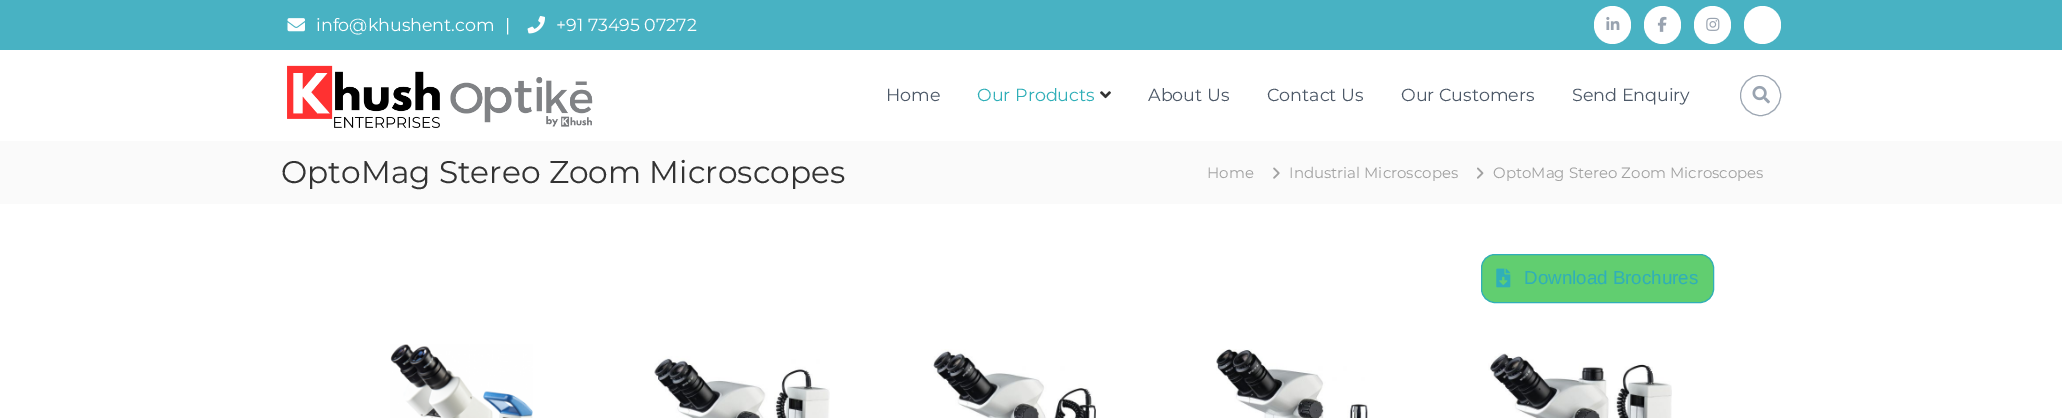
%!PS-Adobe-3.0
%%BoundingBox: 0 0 2062 418
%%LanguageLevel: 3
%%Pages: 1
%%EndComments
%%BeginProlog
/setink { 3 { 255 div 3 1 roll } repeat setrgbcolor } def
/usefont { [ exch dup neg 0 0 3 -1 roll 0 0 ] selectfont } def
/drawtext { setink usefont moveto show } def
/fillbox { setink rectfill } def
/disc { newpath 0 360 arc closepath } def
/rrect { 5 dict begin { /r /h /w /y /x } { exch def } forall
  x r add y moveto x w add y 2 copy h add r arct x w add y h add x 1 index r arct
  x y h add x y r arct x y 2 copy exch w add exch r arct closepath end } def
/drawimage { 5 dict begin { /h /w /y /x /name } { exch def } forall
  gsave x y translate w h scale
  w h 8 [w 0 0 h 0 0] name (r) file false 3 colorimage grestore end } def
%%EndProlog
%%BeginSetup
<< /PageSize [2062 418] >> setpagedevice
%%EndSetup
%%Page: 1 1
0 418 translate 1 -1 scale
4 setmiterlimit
0 0 2062 418 255 255 255 fillbox
0 0 2062 50 72 178 195 fillbox
(assets/img1.rgb) 287 18 18 14 drawimage
(info@khushent.com) 316 31 /Montserrat-Regular 17.5 255 255 255 drawtext
(|) 505 31 /Montserrat-Regular 17.5 255 255 255 drawtext
(assets/img2.rgb) 527 16 18 18 drawimage
(+91 73495 07272) 556 31 /Montserrat-Regular 17.5 255 255 255 drawtext
1594 6 37 38 18.5 rrect fill
(assets/img3.rgb) 1606 16 14 14 drawimage
1644 6 37 38 18.5 rrect fill
(assets/img4.rgb) 1657 16 10 16 drawimage
1694 6 37 38 18.5 rrect fill
(assets/img5.rgb) 1706 17 14 14 drawimage
1744 6 37 38 18.5 rrect fill
(assets/img6.rgb) 287 65 306 63 drawimage
(Home) 886 101 /Montserrat-Regular 17.5 76 88 103 drawtext
(Our Products) 977 101 /Montserrat-Regular 17.5 48 175 184 drawtext
(assets/img7.rgb) 1100 91 11 8 drawimage
(About Us) 1148 101 /Montserrat-Regular 17.5 76 88 103 drawtext
(Contact Us) 1267 101 /Montserrat-Regular 17.5 76 88 103 drawtext
(Our Customers) 1401 101 /Montserrat-Regular 17.5 76 88 103 drawtext
(Send Enquiry) 1572 101 /Montserrat-Regular 17.5 76 88 103 drawtext
156 166 178 setink
1760.5 95.5 20 disc stroke
(assets/img8.rgb) 1752 85 18 19 drawimage
0 141 2062 63 250 250 250 fillbox
(OptoMag Stereo Zoom Microscopes) 281 183 /Montserrat-Regular 31.25 51 51 51 drawtext
(Home) 1207 178 /Montserrat-Regular 15 161 161 161 drawtext
(assets/img9.rgb) 1273 167 7 12 drawimage
(Industrial Microscopes) 1289 178 /Montserrat-Regular 15 161 161 161 drawtext
(assets/img10.rgb) 1477 167 7 12 drawimage
(OptoMag Stereo Zoom Microscopes) 1493 178 /Montserrat-Regular 15 161 161 161 drawtext
97 206 112 setink
1481.5 254.5 232 48 13.5 rrect gsave fill grestore
48 175 184 setink
stroke
(assets/img11.rgb) 1496 268 15 20 drawimage
(Download Brochures) 1524 284 /LiberationSans-Regular 18.75 48 175 184 drawtext
(assets/img12.rgb) 390 344 143 74 drawimage
(assets/img13.rgb) 654 356 176 62 drawimage
(assets/img14.rgb) 931 349 165 69 drawimage
(assets/img15.rgb) 1216 349 152 69 drawimage
(assets/img16.rgb) 1488 353 184 65 drawimage
showpage
%%EOF
